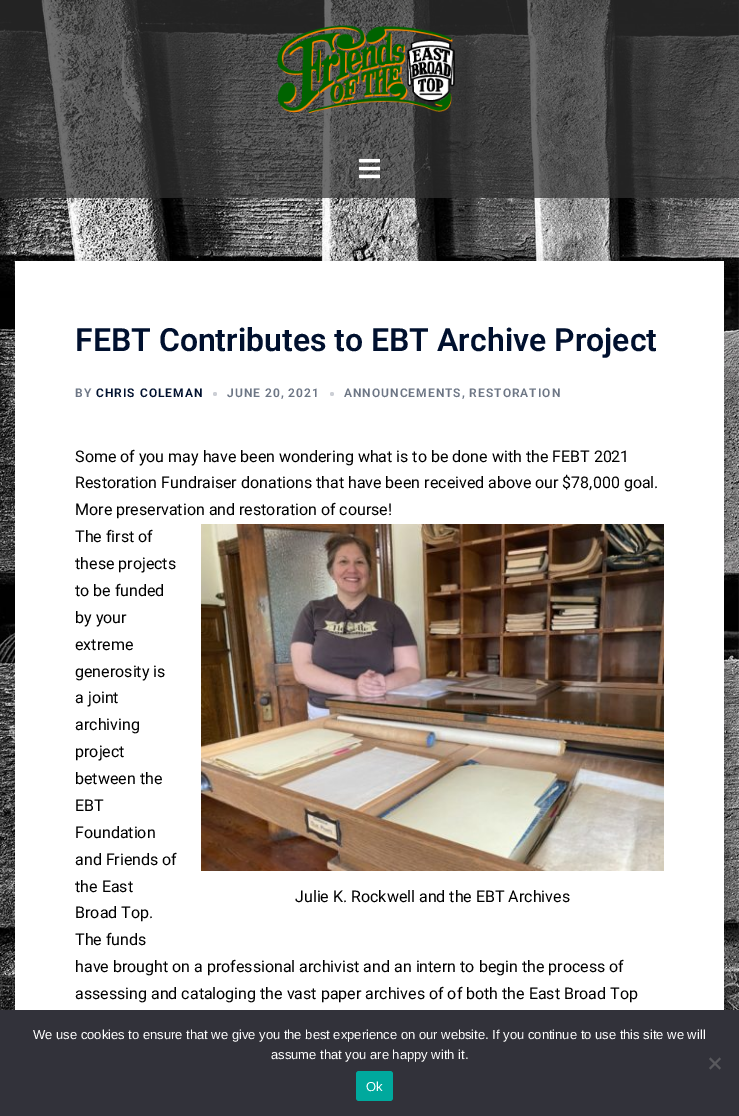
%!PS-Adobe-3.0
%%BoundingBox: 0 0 739 1116
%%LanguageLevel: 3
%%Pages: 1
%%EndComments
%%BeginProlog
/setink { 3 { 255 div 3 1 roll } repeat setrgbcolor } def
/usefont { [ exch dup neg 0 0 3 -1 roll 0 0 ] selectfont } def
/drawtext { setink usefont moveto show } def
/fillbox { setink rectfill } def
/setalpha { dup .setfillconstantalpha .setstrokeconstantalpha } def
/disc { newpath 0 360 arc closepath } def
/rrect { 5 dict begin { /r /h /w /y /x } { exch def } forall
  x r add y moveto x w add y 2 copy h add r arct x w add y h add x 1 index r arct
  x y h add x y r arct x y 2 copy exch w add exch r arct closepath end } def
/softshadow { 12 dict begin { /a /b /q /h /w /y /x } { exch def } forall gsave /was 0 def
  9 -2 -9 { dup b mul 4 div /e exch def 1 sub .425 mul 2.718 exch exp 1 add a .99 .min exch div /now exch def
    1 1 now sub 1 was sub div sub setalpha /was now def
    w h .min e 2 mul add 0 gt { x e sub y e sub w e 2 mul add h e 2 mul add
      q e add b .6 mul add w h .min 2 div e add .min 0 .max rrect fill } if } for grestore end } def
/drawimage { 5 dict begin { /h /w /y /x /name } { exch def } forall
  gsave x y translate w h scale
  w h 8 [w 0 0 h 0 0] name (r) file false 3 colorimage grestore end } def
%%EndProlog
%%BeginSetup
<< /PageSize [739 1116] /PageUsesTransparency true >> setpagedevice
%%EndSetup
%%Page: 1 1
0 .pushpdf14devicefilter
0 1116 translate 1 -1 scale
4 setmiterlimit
0 0 739 1116 255 255 255 fillbox
(assets/img1.rgb) 0 0 739 1010 drawimage
0.7 setalpha
0 0 739 198 50 50 50 fillbox
1 setalpha
(assets/img2.rgb) 277 25 178 88 drawimage
(assets/img3.rgb) 359 158 21 21 drawimage
0 0 0 setink
15 261 709 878 0 7.5 0.05 softshadow
15 261 709 749 255 255 255 fillbox
(FEBT Contributes to EBT Archive Project) 75 351 /Roboto-SemiBold 32 0 16 46 drawtext
/Roboto-SemiBold 12 usefont
109 118 133 setink
75 397 moveto 1 0 (BY) ashow
0 16 46 setink
96 397 moveto 1 0 (CHRIS COLEMAN) ashow
204 207 213 setink
215 394 2 disc fill
109 118 133 setink
227 397 moveto 1 0 (JUNE 20, 2021) ashow
204 207 213 setink
332 394 2 disc fill
109 118 133 setink
344 397 moveto 1 0 (ANNOUNCEMENTS, RESTORATION) ashow
(Some of you may have been wondering what is to be done with the FEBT 2021) 75 462 /Roboto-Regular 16 0 0 0 drawtext
(Restoration Fundraiser donations that have been received above our $78,000 goal.) 75 488 /Roboto-Regular 16 0 0 0 drawtext
(More preservation and restoration of course!) 75 515 /Roboto-Regular 16 0 0 0 drawtext
(The first of) 75 542 /Roboto-Regular 16 0 0 0 drawtext
(these projects) 75 569 /Roboto-Regular 16 0 0 0 drawtext
(to be funded) 75 596 /Roboto-Regular 16 0 0 0 drawtext
(by your) 75 623 /Roboto-Regular 16 0 0 0 drawtext
(extreme) 75 650 /Roboto-Regular 16 0 0 0 drawtext
(generosity is) 75 677 /Roboto-Regular 16 0 0 0 drawtext
(a joint) 75 703 /Roboto-Regular 16 0 0 0 drawtext
(archiving) 75 730 /Roboto-Regular 16 0 0 0 drawtext
(project) 75 757 /Roboto-Regular 16 0 0 0 drawtext
(between the) 75 784 /Roboto-Regular 16 0 0 0 drawtext
(EBT) 75 811 /Roboto-Regular 16 0 0 0 drawtext
(Foundation) 75 838 /Roboto-Regular 16 0 0 0 drawtext
(and Friends of) 75 865 /Roboto-Regular 16 0 0 0 drawtext
(the East) 75 892 /Roboto-Regular 16 0 0 0 drawtext
(Broad Top.) 75 918 /Roboto-Regular 16 0 0 0 drawtext
(The funds) 75 945 /Roboto-Regular 16 0 0 0 drawtext
(have brought on a professional archivist and an intern to begin the process of) 75 972 /Roboto-Regular 16 0 0 0 drawtext
(assessing and cataloging the vast paper archives of of both the East Broad Top) 75 999 /Roboto-Regular 16 0 0 0 drawtext
(assets/img4.rgb) 201 524 463 347 drawimage
(Julie K. Rockwell and the EBT Archives) 295 902 /Roboto-Regular 16 0 0 0 drawtext
0 1010 739 106 50 50 58 fillbox
(We use cookies to ensure that we give you the best experience on our website. If you continue to use this site we will) 33 1039 /LiberationSans-Regular 13 255 255 255 drawtext
(assume that you are happy with it.) 271 1059 /LiberationSans-Regular 13 255 255 255 drawtext
89 89 93 setink
719.5 1057.5 moveto 721 1059 lineto 710.5 1069.5 lineto 709 1068 lineto closepath fill
709 1059 moveto 710.5 1057.5 lineto 721 1068 lineto 719.5 1069.5 lineto closepath fill
0 169 157 setink
356 1071 37 30 3 rrect fill
(Ok) 366 1091 /LiberationSans-Regular 13 255 255 255 drawtext
.poppdf14devicefilter showpage
%%EOF
